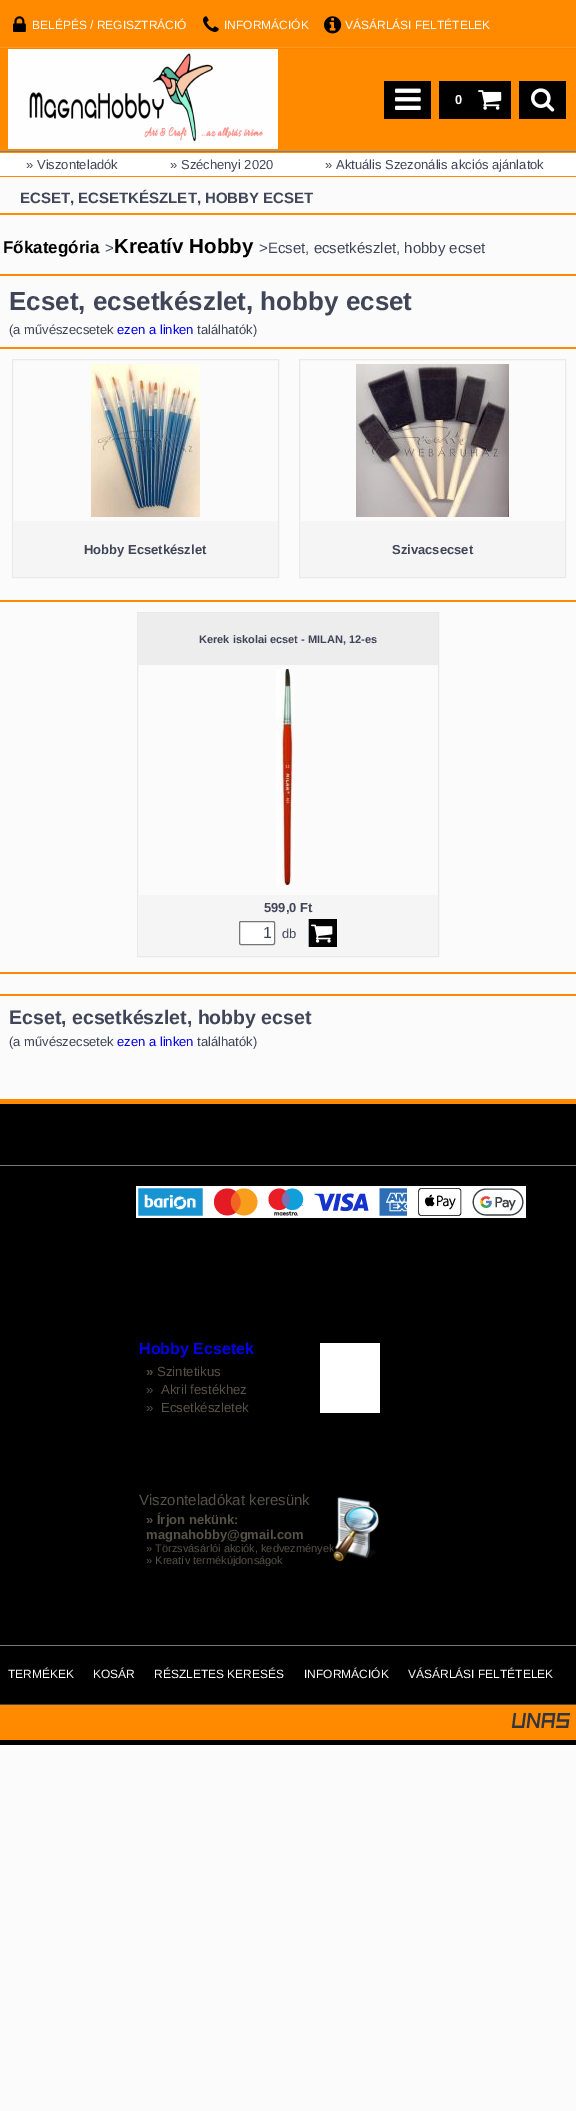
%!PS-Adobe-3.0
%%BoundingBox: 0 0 576 2111
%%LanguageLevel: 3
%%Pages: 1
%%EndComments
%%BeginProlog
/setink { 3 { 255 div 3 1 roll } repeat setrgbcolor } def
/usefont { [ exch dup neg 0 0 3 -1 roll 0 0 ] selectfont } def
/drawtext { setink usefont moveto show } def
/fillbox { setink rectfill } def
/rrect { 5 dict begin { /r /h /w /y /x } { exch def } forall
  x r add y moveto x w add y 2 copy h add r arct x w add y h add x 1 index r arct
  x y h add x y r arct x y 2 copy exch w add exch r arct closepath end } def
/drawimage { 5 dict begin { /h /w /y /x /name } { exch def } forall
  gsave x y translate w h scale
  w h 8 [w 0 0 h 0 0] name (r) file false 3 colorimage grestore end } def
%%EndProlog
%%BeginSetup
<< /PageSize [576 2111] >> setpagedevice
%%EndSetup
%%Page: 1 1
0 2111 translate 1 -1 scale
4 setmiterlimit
0 0 576 2111 251 251 251 fillbox
0 0 576 153 255 138 0 fillbox
0 151 576 1 109 134 150 fillbox
(assets/img1.rgb) 0 47 576 2 drawimage
(assets/img2.rgb) 13 16 13 16 drawimage
(BELÉPÉS / REGISZTRÁCIÓ) 32 29 /LiberationSans-Regular 12 255 255 255 drawtext
(assets/img3.rgb) 203 16 16 16 drawimage
(INFORMÁCIÓK) 224 29 /LiberationSans-Regular 12 255 255 255 drawtext
(assets/img4.rgb) 324 16 18 18 drawimage
(VÁSÁRLÁSI FELTÉTELEK) 345 29 /LiberationSans-Regular 12 255 255 255 drawtext
(assets/img5.rgb) 8 49 270 100 drawimage
384 81 47 38 0 0 0 fillbox
(assets/img6.rgb) 395 88 26 22 drawimage
439 81 72 38 0 0 0 fillbox
(0) 455 104 /LiberationSans-Bold 13 255 255 255 drawtext
(assets/img7.rgb) 478 90 24 20 drawimage
519 81 47 38 0 0 0 fillbox
(assets/img8.rgb) 531 88 24 24 drawimage
0 153 576 23 255 255 255 fillbox
0 176 576 1 255 138 0 fillbox
(» Viszonteladók) 26 169 /LiberationSans-Regular 13 65 69 88 drawtext
(» Széchenyi 2020) 170 169 /LiberationSans-Regular 13 65 69 88 drawtext
(» Aktuális Szezonális akciós ajánlatok) 325 169 /LiberationSans-Regular 13 65 69 88 drawtext
(ECSET, ECSETKÉSZLET, HOBBY ECSET) 20 203 /LiberationSans-Bold 15 65 69 88 drawtext
0 213 576 2 255 138 0 fillbox
(Főkategória) 3 253 /LiberationSans-Bold 17 0 0 0 drawtext
(>) 105 253 /LiberationSans-Regular 15 65 69 88 drawtext
(Kreatív Hobby) 114 253 /LiberationSans-Bold 20.5 0 0 0 drawtext
(>Ecset, ecsetkészlet, hobby ecset) 259 253 /LiberationSans-Regular 15 65 69 88 drawtext
0 274 576 2 255 138 0 fillbox
(Ecset, ecsetkészlet, hobby ecset) 9 310 /LiberationSans-Bold 26 65 69 88 drawtext
(\(a művészecsetek) 9 334 /LiberationSans-Regular 13 65 69 88 drawtext
(ezen a linken) 117 334 /LiberationSans-Regular 13 0 0 238 drawtext
(találhatók\)) 197 334 /LiberationSans-Regular 13 65 69 88 drawtext
0 347 576 2 255 138 0 fillbox
233 233 231 setink
12.5 359.5 266 218 rectstroke
(assets/img9.rgb) 91 364 109 153 drawimage
13 521 265 56 245 245 245 fillbox
(Hobby Ecsetkészlet) 84 554 /LiberationSans-Bold 13 65 69 88 drawtext
233 233 231 setink
299.5 359.5 266 218 rectstroke
(assets/img10.rgb) 356 364 153 153 drawimage
300 521 265 56 245 245 245 fillbox
(Szivacsecset) 392 554 /LiberationSans-Bold 13 65 69 88 drawtext
0 600 576 2 255 138 0 fillbox
233 233 231 setink
137.5 612.5 301 344 rectstroke
138 613 300 52 237 237 237 fillbox
(Kerek iskolai ecset - MILAN, 12-es) 199 643 /LiberationSans-Bold 11 65 69 88 drawtext
(assets/img11.rgb) 276 669 18 216 drawimage
138 895 300 61 245 245 245 fillbox
(599,0 Ft) 264 912 /LiberationSans-Bold 13 65 69 88 drawtext
255 255 255 setink
239.5 921.5 35 23 1.5 rrect gsave fill grestore
118 118 118 setink
stroke
(1) 263 938 /LiberationSans-Regular 16 65 69 88 drawtext
(db) 282 938 /LiberationSans-Regular 13 65 69 88 drawtext
309 919 28 28 1 1 1 fillbox
308 919 1 28 155 176 188 fillbox
(assets/img12.rgb) 311 924 22 19 drawimage
0 972 576 2 255 138 0 fillbox
0 994 576 2 255 138 0 fillbox
(Ecset, ecsetkészlet, hobby ecset) 9 1024 /LiberationSans-Bold 19.5 65 69 88 drawtext
(\(a művészecsetek) 9 1046 /LiberationSans-Regular 13 65 69 88 drawtext
(ezen a linken) 117 1046 /LiberationSans-Regular 13 0 0 238 drawtext
(találhatók\)) 197 1046 /LiberationSans-Regular 13 65 69 88 drawtext
0 1099 576 5 255 138 0 fillbox
0 1104 576 600 0 0 0 fillbox
0 1704 576 1 65 69 80 fillbox
0 1165 576 1 119 118 118 fillbox
0 1645 576 1 119 118 118 fillbox
(assets/img13.rgb) 136 1186 390 32 drawimage
(Hobby Ecsetek) 139 1354 /LiberationSans-Bold 16 0 0 238 drawtext
(») 146 1376 /LiberationSans-Bold 13.25 86 82 71 drawtext
(Szintetikus) 157 1376 /LiberationSans-Regular 13.25 86 82 71 drawtext
(»  Akril festékhez) 146 1394 /LiberationSans-Regular 13.25 86 82 71 drawtext
(»  Ecsetkészletek) 146 1412 /LiberationSans-Regular 13.25 86 82 71 drawtext
320 1343 60 70 255 255 255 fillbox
(Viszonteladókat keresünk) 139 1505 /LiberationSans-Regular 15 86 82 71 drawtext
(» Írjon nekünk:) 146 1524 /LiberationSans-Bold 13 86 82 71 drawtext
(magnahobby@gmail.com) 146 1539 /LiberationSans-Bold 13 86 82 71 drawtext
(» Törzsvásárlói akciók, kedvezmények) 146 1552 /LiberationSans-Regular 11 86 82 71 drawtext
gsave
136 1486 244 80 rectclip
(» Kreatív termékújdonságok) 146 1564 /LiberationSans-Regular 11 86 82 71 drawtext
grestore
(assets/img14.rgb) 333 1497 46 65 drawimage
(TERMÉKEK) 8 1678 /LiberationSans-Regular 12 255 255 255 drawtext
(KOSÁR) 93 1678 /LiberationSans-Regular 12 255 255 255 drawtext
(RÉSZLETES KERESÉS) 154 1678 /LiberationSans-Regular 12 255 255 255 drawtext
(INFORMÁCIÓK) 304 1678 /LiberationSans-Regular 12 255 255 255 drawtext
(VÁSÁRLÁSI FELTÉTELEK) 408 1678 /LiberationSans-Regular 12 255 255 255 drawtext
0 1705 576 35 255 138 0 fillbox
(assets/img15.rgb) 511 1713 60 15 drawimage
0 1740 576 5 0 0 0 fillbox
showpage
%%EOF
